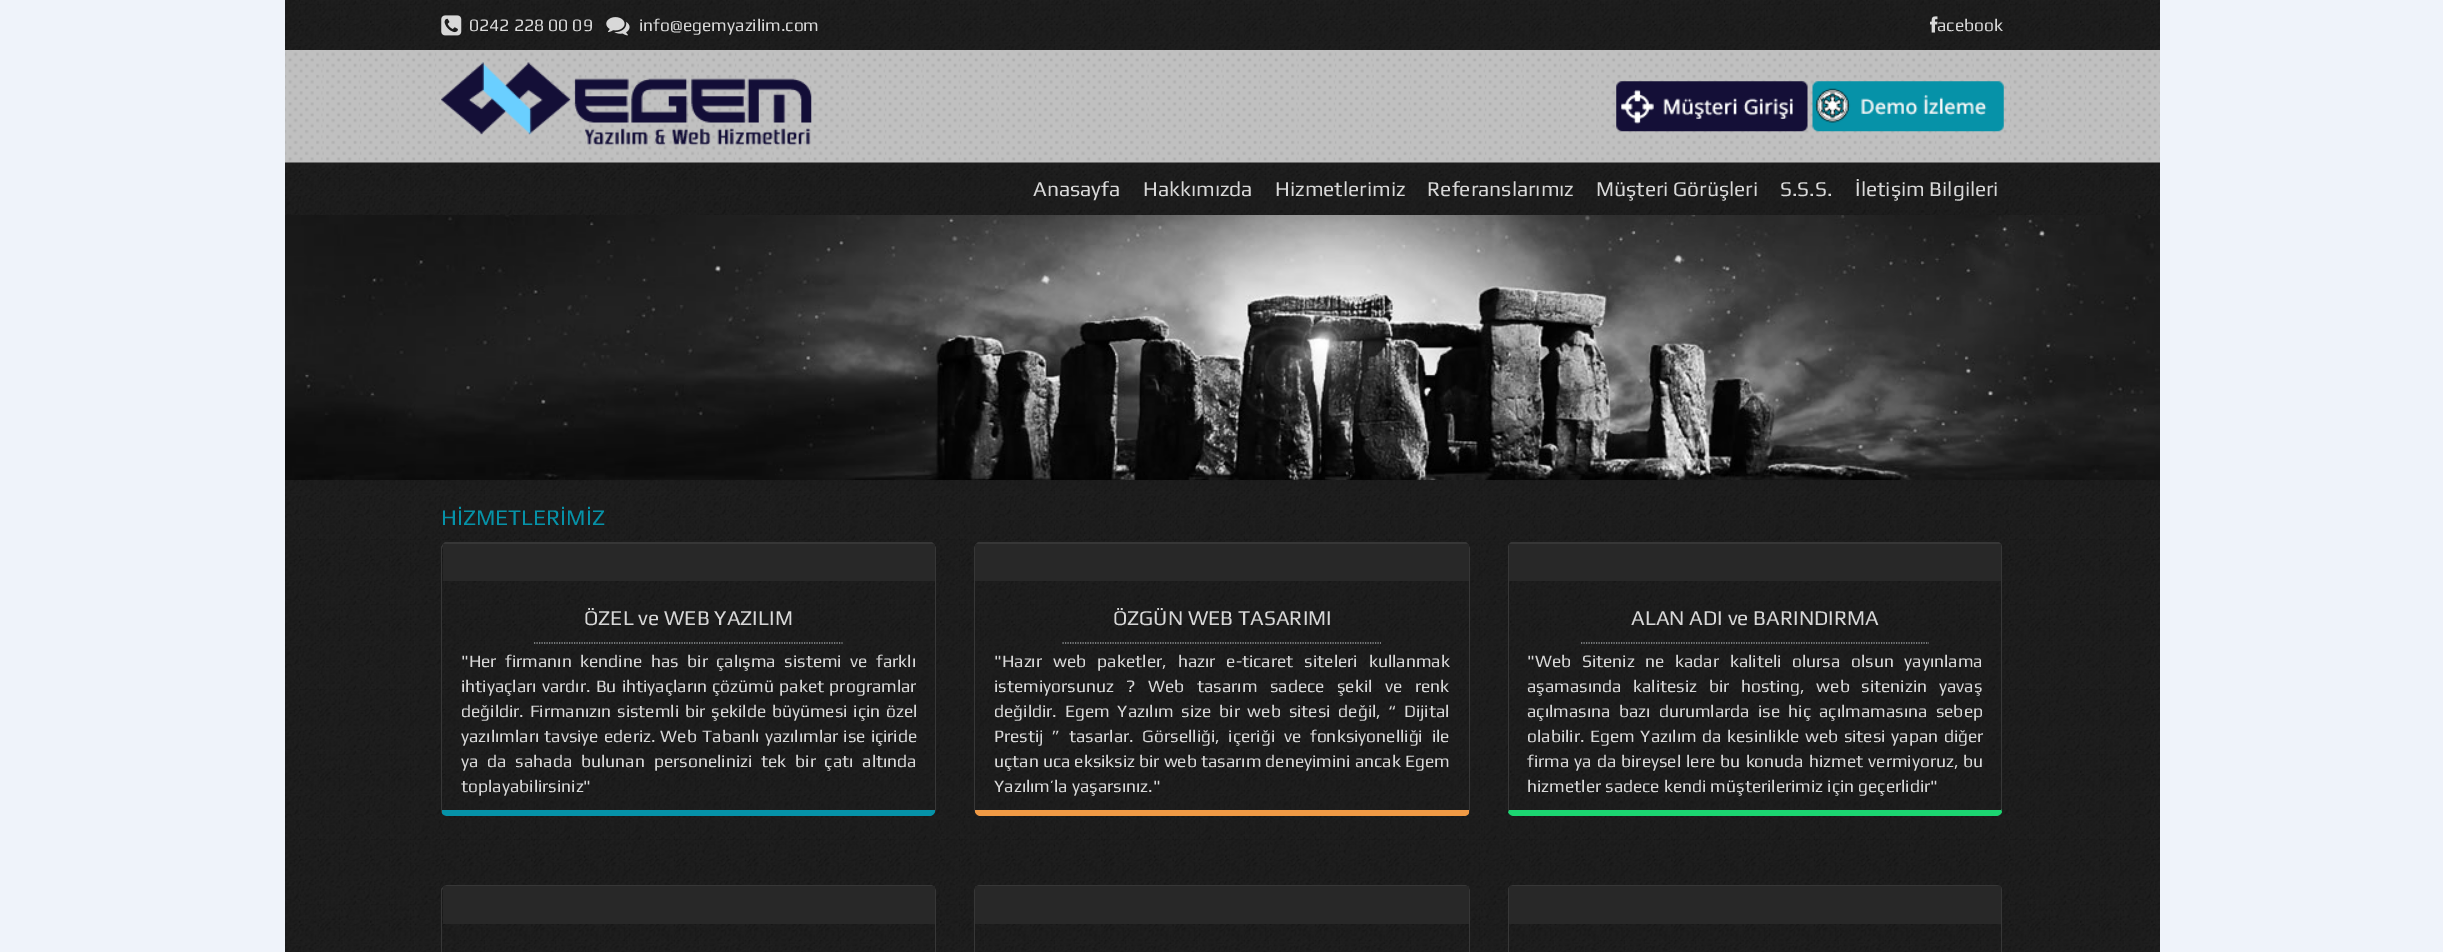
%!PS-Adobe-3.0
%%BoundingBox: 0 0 2443 952
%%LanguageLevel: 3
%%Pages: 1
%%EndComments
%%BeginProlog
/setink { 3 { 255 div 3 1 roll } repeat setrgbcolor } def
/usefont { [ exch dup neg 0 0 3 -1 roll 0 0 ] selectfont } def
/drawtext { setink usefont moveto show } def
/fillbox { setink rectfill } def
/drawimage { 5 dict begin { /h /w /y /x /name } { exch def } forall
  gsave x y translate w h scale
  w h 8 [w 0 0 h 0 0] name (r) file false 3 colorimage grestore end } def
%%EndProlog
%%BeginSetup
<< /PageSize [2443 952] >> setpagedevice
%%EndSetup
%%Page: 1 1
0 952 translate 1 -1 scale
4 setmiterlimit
0 0 2443 952 239 243 250 fillbox
(assets/img1.rgb) 285 0 1875 952 drawimage
(assets/img2.rgb) 441 15 21 21 drawimage
(0242 228 00 09) 469 31 /Play-Regular 17.5 216 216 216 drawtext
(assets/img3.rgb) 606 17 24 19 drawimage
(info@egemyazilim.com) 639 31 /Play-Regular 17.5 216 216 216 drawtext
(assets/img4.rgb) 1930 16 8 17 drawimage
(acebook) 1937 31 /Play-Regular 17.5 216 216 216 drawtext
(assets/img5.rgb) 285 50 1875 113 drawimage
(assets/img6.rgb) 441 62 371 84 drawimage
(assets/img7.rgb) 1616 81 192 51 drawimage
(assets/img8.rgb) 1812 81 192 51 drawimage
(Anasayfa) 1033 196 /Play-Regular 21 216 216 216 drawtext
(Hakkımızda) 1143 196 /Play-Regular 21 216 216 216 drawtext
(Hizmetlerimiz) 1275 196 /Play-Regular 21 216 216 216 drawtext
(Referanslarımız) 1427 196 /Play-Regular 21 216 216 216 drawtext
(Müşteri Görüşleri) 1596 196 /Play-Regular 21 216 216 216 drawtext
(S.S.S.) 1780 196 /Play-Regular 21 216 216 216 drawtext
(İletişim Bilgileri) 1855 196 /Play-Regular 21 216 216 216 drawtext
(assets/img9.rgb) 285 215 1875 265 drawimage
(HİZMETLERİMİZ) 441 525 /Play-Regular 22.5 6 146 168 drawtext
55 55 55 setink
448 544 moveto 444 545 lineto 443 544 lineto 445 542 lineto 932 542 lineto 934 544 lineto 933 545 lineto 933 544 931 544 930 544 curveto closepath fill
934 544 moveto 935 546 936 547 936 549 curveto 936 810 lineto 935 812 lineto 935 810 lineto 935 549 lineto 935 547 934 546 933 545 curveto closepath fill
6 146 168 setink
935 812 moveto 934 814 932 816 930 816 curveto 448 816 lineto 445 816 443 815 442 813 curveto 442 810 lineto 935 810 lineto closepath fill
55 55 55 setink
441 547 moveto 443 544 lineto 444 545 lineto 443 546 442 547 442 549 curveto 442 810 lineto 442 813 lineto 441 812 lineto closepath fill
443 544 492 37 40 40 40 fillbox
(ÖZEL ve WEB YAZILIM) 584 625 /Play-Regular 21 216 216 216 drawtext
149 153 155 setink
1.2 setlinewidth
[1.25 1.25] 0 setdash
534 643 moveto 842.5 643 lineto stroke
/Play-Regular 17.5 usefont
216 216 216 setink
461 667 moveto 4.5 0 32 ("Her firmanın kendine has bir çalışma sistemi ve farklı) widthshow
461 692 moveto 1.25 0 32 (ihtiyaçları vardır. Bu ihtiyaçların çözümü paket programlar) widthshow
461 717 moveto 1.75 0 32 (değildir. Firmanızın sistemli bir şekilde büyümesi için özel) widthshow
461 742 moveto 1 0 32 (yazılımları tavsiye ederiz. Web Tabanlı yazılımlar ise içiride) widthshow
461 767 moveto 4.75 0 32 (ya da sahada bulunan personelinizi tek bir çatı altında) widthshow
(toplayabilirsiniz") 461 792 /Play-Regular 17.5 216 216 216 drawtext
55 55 55 setink
980 544 moveto 979 544 977 544 977 545 curveto 976 544 lineto 978 542 lineto 1466 542 lineto 1468 544 lineto 1467 545 lineto 1464 544 lineto closepath fill
1470 810 moveto 1470 548 lineto 1468 544 lineto 1467 545 lineto 1468 546 1469 547 1469 549 curveto 1469 810 lineto 1469 813 lineto closepath fill
240 154 69 setink
1469 813 moveto 1468 815 1466 816 1464 816 curveto 980 816 lineto 978 816 976 814 975 812 curveto 975 810 lineto 1469 810 lineto closepath fill
55 55 55 setink
975 812 moveto 974 810 lineto 974 549 lineto 974 547 975 546 976 544 curveto 977 545 lineto 976 546 975 547 975 549 curveto 975 810 lineto closepath fill
975 544 494 37 40 40 40 fillbox
(ÖZGÜN WEB TASARIMI) 1113 625 /Play-Regular 21 216 216 216 drawtext
149 153 155 setink
1062.5 643 moveto 1381 643 lineto stroke
/Play-Regular 17.5 usefont
216 216 216 setink
994 667 moveto 7 0 32 ("Hazır web paketler, hazır e-ticaret siteleri kullanmak) widthshow
994 692 moveto 8.5 0 32 (istemiyorsunuz ? Web tasarım sadece şekil ve renk) widthshow
994 717 moveto 3.75 0 32 (değildir. Egem Yazılım size bir web sitesi değil, “ Dijital) widthshow
994 742 moveto 4.75 0 32 (Prestij ” tasarlar. Görselliği, içeriği ve fonksiyonelliği ile) widthshow
(uçtan uca eksiksiz bir web tasarım deneyimini ancak Egem) 994 767 /Play-Regular 17.5 216 216 216 drawtext
(Yazılım’la yaşarsınız.") 994 792 /Play-Regular 17.5 216 216 216 drawtext
55 55 55 setink
1514 544 moveto 1512 544 1511 544 1510 545 curveto 1509 544 lineto 1511 542 lineto 1999 542 lineto 2001 544 lineto 2000 545 lineto 1999 544 1998 544 1996 544 curveto closepath fill
2001 544 moveto 2002 546 2002 547 2002 549 curveto 2002 812 lineto 2001 809 lineto 2001 549 lineto 2001 548 2000 546 2000 545 curveto closepath fill
28 213 113 setink
2002 812 moveto 2001 814 1999 816 1996 816 curveto 1514 816 lineto 1511 816 1509 814 1508 812 curveto 1509 809 lineto 1509 810 lineto 2001 810 lineto 2001 809 lineto closepath fill
55 55 55 setink
1508 812 moveto 1508 549 lineto 1508 547 1508 546 1509 544 curveto 1510 545 lineto 1510 546 1509 548 1509 549 curveto 1509 809 lineto closepath fill
1509 544 492 37 40 40 40 fillbox
(ALAN ADI ve BARINDIRMA) 1631 625 /Play-Regular 21 216 216 216 drawtext
149 153 155 setink
1581 643 moveto 1929 643 lineto stroke
/Play-Regular 17.5 usefont
216 216 216 setink
1527 667 moveto 6.5 0 32 ("Web Siteniz ne kadar kaliteli olursa olsun yayınlama) widthshow
1527 692 moveto 7.5 0 32 (aşamasında kalitesiz bir hosting, web sitenizin yavaş) widthshow
1527 717 moveto 4.25 0 32 (açılmasına bazı durumlarda ise hiç açılmamasına sebep) widthshow
1527 742 moveto 1.5 0 32 (olabilir. Egem Yazılım da kesinlikle web sitesi yapan diğer) widthshow
1527 767 moveto 1 0 32 (firma ya da bireysel lere bu konuda hizmet vermiyoruz, bu) widthshow
(hizmetler sadece kendi müşterilerimiz için geçerlidir") 1527 792 /Play-Regular 17.5 216 216 216 drawtext
55 55 55 setink
448 885 moveto 446 885 444 886 443 887 curveto 444 887 lineto 447 886 lineto 930 886 lineto 931 886 933 886 934 888 curveto 934 887 lineto 933 886 932 885 930 885 curveto closepath fill
934 887 moveto 935 888 936 890 936 891 curveto 936 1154 lineto 935 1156 lineto 935 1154 lineto 935 891 lineto 935 890 935 888 934 888 curveto closepath fill
441 889 moveto 443 887 lineto 444 887 lineto 442 890 lineto 442 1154 lineto 442 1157 lineto 441 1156 lineto closepath fill
443 886 492 38 40 40 40 fillbox
55 55 55 setink
980 885 moveto 978 885 977 886 976 887 curveto 976 888 lineto 977 887 978 886 980 886 curveto 1464 886 lineto 1466 886 1467 886 1468 887 curveto 1467 886 1466 885 1464 885 curveto closepath fill
1470 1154 moveto 1470 890 lineto 1468 887 lineto 1468 888 1469 890 1469 891 curveto 1469 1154 lineto 1469 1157 lineto closepath fill
976 887 moveto 975 888 974 890 974 891 curveto 974 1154 lineto 975 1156 lineto 975 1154 lineto 975 891 lineto 975 890 975 888 976 888 curveto closepath fill
975 886 494 38 40 40 40 fillbox
55 55 55 setink
1514 885 moveto 1512 885 1510 886 1509 887 curveto 1510 888 lineto 1511 887 1512 886 1514 886 curveto 1996 886 lineto 1998 886 1999 887 2000 888 curveto 2001 887 lineto 2000 886 1998 885 1996 885 curveto closepath fill
2001 887 moveto 2002 888 2002 890 2002 891 curveto 2002 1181 lineto 2001 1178 lineto 2001 891 lineto 2001 890 2001 888 2000 888 curveto closepath fill
1509 887 moveto 1508 888 1508 890 1508 891 curveto 1508 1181 lineto 1509 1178 lineto 1509 891 lineto 1509 890 1509 888 1510 888 curveto closepath fill
1509 886 492 38 40 40 40 fillbox
showpage
%%EOF
